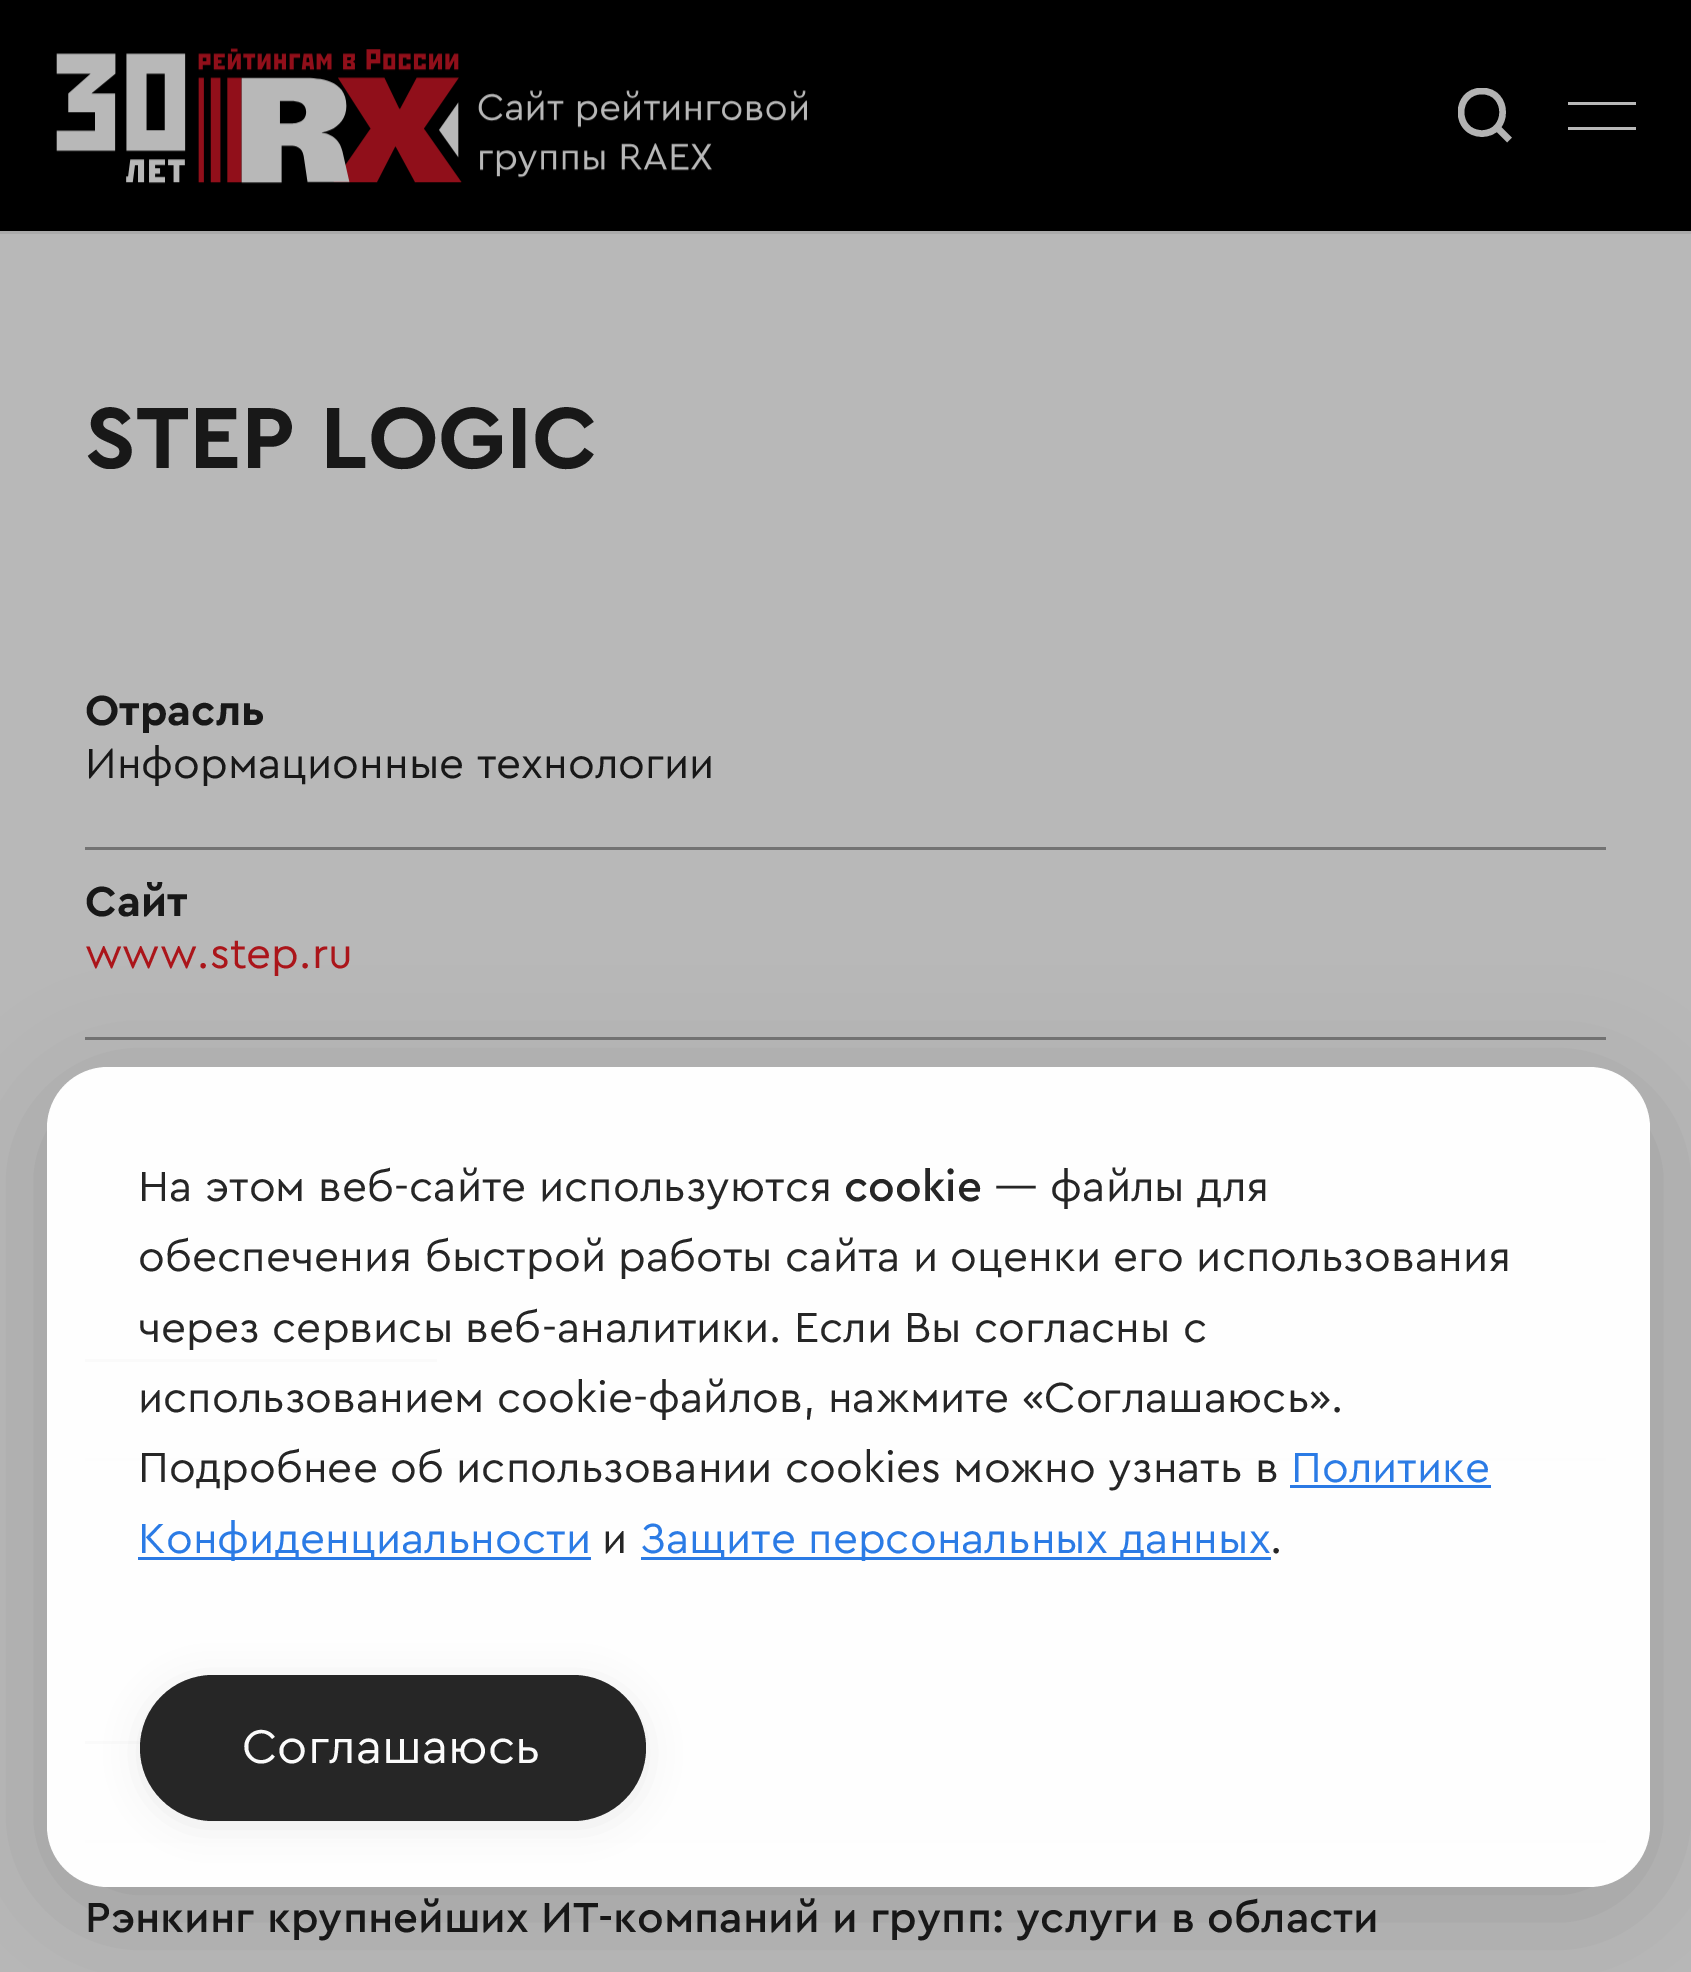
%!PS-Adobe-3.0
%%BoundingBox: 0 0 1691 1972
%%LanguageLevel: 3
%%Pages: 1
%%EndComments
%%BeginProlog
/setink { 3 { 255 div 3 1 roll } repeat setrgbcolor } def
/usefont { [ exch dup neg 0 0 3 -1 roll 0 0 ] selectfont } def
/drawtext { setink usefont moveto show } def
/fillbox { setink rectfill } def
/setalpha { dup .setfillconstantalpha .setstrokeconstantalpha } def
/rrect { 5 dict begin { /r /h /w /y /x } { exch def } forall
  x r add y moveto x w add y 2 copy h add r arct x w add y h add x 1 index r arct
  x y h add x y r arct x y 2 copy exch w add exch r arct closepath end } def
/softshadow { 12 dict begin { /a /b /q /h /w /y /x } { exch def } forall gsave /was 0 def
  9 -2 -9 { dup b mul 4 div /e exch def 1 sub .425 mul 2.718 exch exp 1 add a .99 .min exch div /now exch def
    1 1 now sub 1 was sub div sub setalpha /was now def
    w h .min e 2 mul add 0 gt { x e sub y e sub w e 2 mul add h e 2 mul add
      q e add b .6 mul add w h .min 2 div e add .min 0 .max rrect fill } if } for grestore end } def
/drawimage { 5 dict begin { /h /w /y /x /name } { exch def } forall
  gsave x y translate w h scale
  w h 8 [w 0 0 h 0 0] name (r) file false 3 colorimage grestore end } def
%%EndProlog
%%BeginSetup
<< /PageSize [1691 1972] /PageUsesTransparency true >> setpagedevice
%%EndSetup
%%Page: 1 1
0 .pushpdf14devicefilter
0 1972 translate 1 -1 scale
4 setmiterlimit
0 0 1691 1972 184 184 184 fillbox
0 0 1691 231 0 0 0 fillbox
0 231 1691 3 170 170 170 fillbox
(assets/img1.rgb) 56 48 751 136 drawimage
gsave
1458 88 55 55 rectclip
179 179 179 setink
6.5 setlinewidth
1482 133.5 moveto 1509.5 133.5 1509.5 91 1482 91 curveto 1454 91 1454 133.5 1482 133.5 curveto closepath stroke
grestore
179 179 179 setink
6.5 setlinewidth
1496.5 127 moveto 1509.5 140 lineto stroke
1568 102 68 3 184 184 184 fillbox
1568 127 68 3 184 184 184 fillbox
(STEP LOGIC) 85 468 /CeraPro-Bold 90.75 24 24 24 drawtext
85 847 1521 3 115 115 115 fillbox
(Отрасль) 85 725 /CeraPro-Bold 44 24 24 24 drawtext
(Информационные технологии) 85 778 /CeraPro-Regular 44 24 24 24 drawtext
85 1037 1521 3 115 115 115 fillbox
(Сайт) 85 916 /CeraPro-Bold 44 24 24 24 drawtext
(www.step.ru) 85 968 /CeraPro-Regular 44 171 21 26 drawtext
85 1359 352 3 24 24 24 fillbox
85 1458 1521 3 160 163 166 fillbox
85 1741 352 3 24 24 24 fillbox
85 1840 1521 3 160 163 166 fillbox
(Рэнкинг крупнейших ИТ-компаний и групп: услуги в области) 85 1932 /CeraPro-Medium 44 24 24 24 drawtext
gsave
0 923 moveto 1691 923 lineto 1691 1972 lineto 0 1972 lineto closepath 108 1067 moveto 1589 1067 lineto 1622.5 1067 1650 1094.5 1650 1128 curveto 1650 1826 lineto 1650 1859.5 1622.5 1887 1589 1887 curveto 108 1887 lineto 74.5 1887 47 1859.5 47 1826 curveto 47 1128 lineto 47 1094.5 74.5 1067 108 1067 curveto closepath eoclip newpath
0 0 0 setink
47 1089 1603 820 61 55 0.13 softshadow
grestore
0.98 setalpha
255 255 255 setink
47 1067 1603 820 61 rrect fill
1 setalpha
(На этом веб-сайте используются) 138 1201 /CeraPro-Regular 44 38 38 38 drawtext
(cookie) 844 1201 /CeraPro-Medium 44 38 38 38 drawtext
(— файлы для) 994 1201 /CeraPro-Regular 44 38 38 38 drawtext
(обеспечения быстрой работы сайта и оценки его использования) 138 1271 /CeraPro-Regular 44 38 38 38 drawtext
(через сервисы веб-аналитики. Если Вы согласны с) 138 1342 /CeraPro-Regular 44 38 38 38 drawtext
(использованием cookie-файлов, нажмите «Соглашаюсь».) 138 1412 /CeraPro-Regular 44 38 38 38 drawtext
(Подробнее об использовании cookies можно узнать в) 138 1482 /CeraPro-Regular 44 38 38 38 drawtext
(Политике) 1291 1482 /CeraPro-Regular 44 43 123 229 drawtext
1290 1485 201 3 42 121 228 fillbox
138 1557 453 3 42 121 228 fillbox
(Конфиденциальности) 138 1553 /CeraPro-Regular 44 43 123 229 drawtext
(и) 602 1553 /CeraPro-Regular 44 38 38 38 drawtext
0.98 setalpha
641 1557 630 3 39 120 229 fillbox
1 setalpha
(Защите персональных данных) 640 1553 /CeraPro-Regular 44 43 123 229 drawtext
(.) 1270 1553 /CeraPro-Regular 44 38 38 38 drawtext
gsave
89 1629 moveto 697 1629 lineto 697 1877 lineto 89 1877 lineto closepath 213 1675 moveto 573 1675 lineto 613.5 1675 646 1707.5 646 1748 curveto 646 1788.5 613.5 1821 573 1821 curveto 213 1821 lineto 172.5 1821 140 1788.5 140 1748 curveto 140 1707.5 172.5 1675 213 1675 curveto closepath eoclip newpath
0 0 0 setink
140 1680 506 146 73 16.5 0.07 softshadow
grestore
0.98 setalpha
34 34 34 setink
140 1675 506 146 73 rrect fill
1 setalpha
(Соглашаюсь) 242 1763 /CeraPro-Regular 49.5 251 251 251 drawtext
.poppdf14devicefilter showpage
%%EOF
